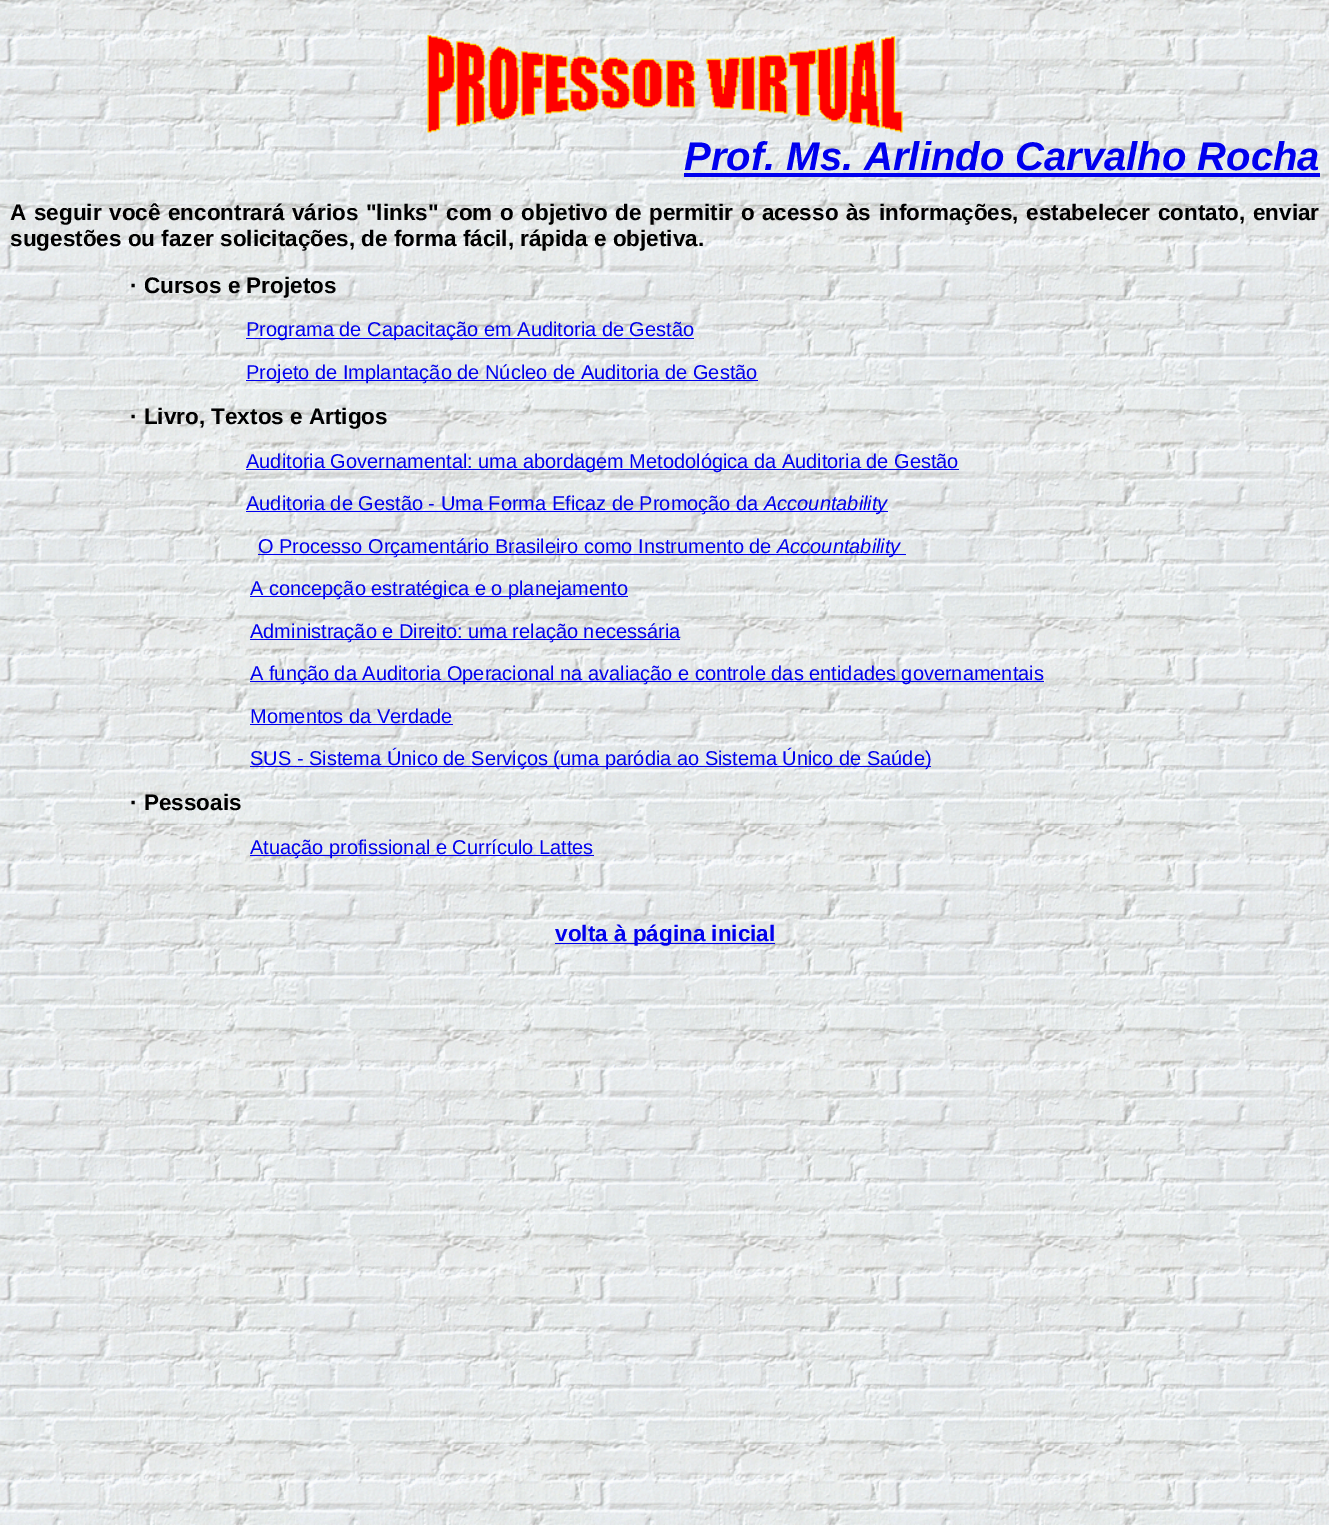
%!PS-Adobe-3.0
%%BoundingBox: 0 0 1329 1525
%%LanguageLevel: 3
%%Pages: 1
%%EndComments
%%BeginProlog
/setink { 3 { 255 div 3 1 roll } repeat setrgbcolor } def
/usefont { [ exch dup neg 0 0 3 -1 roll 0 0 ] selectfont } def
/drawtext { setink usefont moveto show } def
/fillbox { setink rectfill } def
/drawimage { 5 dict begin { /h /w /y /x /name } { exch def } forall
  gsave x y translate w h scale
  w h 8 [w 0 0 h 0 0] name (r) file false 3 colorimage grestore end } def
%%EndProlog
%%BeginSetup
<< /PageSize [1329 1525] >> setpagedevice
%%EndSetup
%%Page: 1 1
0 1525 translate 1 -1 scale
4 setmiterlimit
0 0 1329 1525 255 255 255 fillbox
(assets/img1.rgb) 0 0 1329 1525 drawimage
(assets/img2.rgb) 427 34 476 99 drawimage
(Prof. Ms. Arlindo Carvalho Rocha) 684 170 /LiberationSans-BoldItalic 40 0 0 238 drawtext
684 173 636 4 0 0 238 fillbox
/LiberationSans-Bold 22.5 usefont
0 0 0 setink
10 220 moveto 1.4 0 32 (A seguir você encontrará vários "links" com o objetivo de permitir o acesso às informações, estabelecer contato, enviar) widthshow
(sugestões ou fazer solicitações, de forma fácil, rápida e objetiva.) 10 246 /LiberationSans-Bold 22.5 0 0 0 drawtext
(· Cursos e Projetos) 130 293 /LiberationSans-Bold 22.5 0 0 0 drawtext
246 338 448 1 0 0 238 fillbox
(Programa de Capacitação em Auditoria de Gestão) 246 336 /LiberationSans-Regular 20 0 0 238 drawtext
246 380 512 1 0 0 238 fillbox
(Projeto de Implantação de Núcleo de Auditoria de Gestão) 246 379 /LiberationSans-Regular 20 0 0 238 drawtext
(· Livro, Textos e Artigos) 130 424 /LiberationSans-Bold 22.5 0 0 0 drawtext
246 469 713 1 0 0 238 fillbox
(Auditoria Governamental: uma abordagem Metodológica da Auditoria de Gestão) 246 468 /LiberationSans-Regular 20 0 0 238 drawtext
246 511 642 1 0 0 238 fillbox
(Auditoria de Gestão - Uma Forma Eficaz de Promoção da) 246 510 /LiberationSans-Regular 20 0 0 238 drawtext
(Accountability) 764 510 /LiberationSans-Italic 20 0 0 238 drawtext
258 554 648 1 0 0 238 fillbox
(O Processo Orçamentário Brasileiro como Instrumento de) 258 553 /LiberationSans-Regular 20 0 0 238 drawtext
(Accountability) 777 553 /LiberationSans-Italic 20 0 0 238 drawtext
250 596 378 1 0 0 238 fillbox
(A concepção estratégica e o planejamento) 250 595 /LiberationSans-Regular 20 0 0 238 drawtext
250 639 430 1 0 0 238 fillbox
(Administração e Direito: uma relação necessária) 250 638 /LiberationSans-Regular 20 0 0 238 drawtext
250 681 794 1 0 0 238 fillbox
(A função da Auditoria Operacional na avaliação e controle das entidades governamentais) 250 680 /LiberationSans-Regular 20 0 0 238 drawtext
(Momentos da Verdade) 250 723 /LiberationSans-Regular 20 0 0 238 drawtext
250 724 203 1 0 0 238 fillbox
250 766 681 1 0 0 238 fillbox
(SUS - Sistema Único de Serviços \(uma paródia ao Sistema Único de Saúde\)) 250 765 /LiberationSans-Regular 20 0 0 238 drawtext
(· Pessoais) 130 810 /LiberationSans-Bold 22.5 0 0 0 drawtext
250 855 344 1 0 0 238 fillbox
(Atuação profissional e Currículo Lattes) 250 854 /LiberationSans-Regular 20 0 0 238 drawtext
555 943 220 1 0 0 238 fillbox
(volta à página inicial) 555 941 /LiberationSans-Bold 22.5 0 0 238 drawtext
showpage
%%EOF
